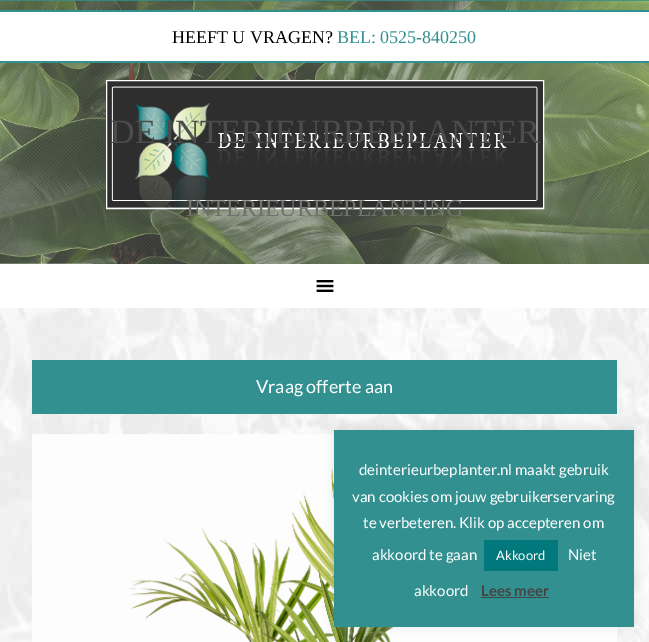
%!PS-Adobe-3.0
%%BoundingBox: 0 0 649 642
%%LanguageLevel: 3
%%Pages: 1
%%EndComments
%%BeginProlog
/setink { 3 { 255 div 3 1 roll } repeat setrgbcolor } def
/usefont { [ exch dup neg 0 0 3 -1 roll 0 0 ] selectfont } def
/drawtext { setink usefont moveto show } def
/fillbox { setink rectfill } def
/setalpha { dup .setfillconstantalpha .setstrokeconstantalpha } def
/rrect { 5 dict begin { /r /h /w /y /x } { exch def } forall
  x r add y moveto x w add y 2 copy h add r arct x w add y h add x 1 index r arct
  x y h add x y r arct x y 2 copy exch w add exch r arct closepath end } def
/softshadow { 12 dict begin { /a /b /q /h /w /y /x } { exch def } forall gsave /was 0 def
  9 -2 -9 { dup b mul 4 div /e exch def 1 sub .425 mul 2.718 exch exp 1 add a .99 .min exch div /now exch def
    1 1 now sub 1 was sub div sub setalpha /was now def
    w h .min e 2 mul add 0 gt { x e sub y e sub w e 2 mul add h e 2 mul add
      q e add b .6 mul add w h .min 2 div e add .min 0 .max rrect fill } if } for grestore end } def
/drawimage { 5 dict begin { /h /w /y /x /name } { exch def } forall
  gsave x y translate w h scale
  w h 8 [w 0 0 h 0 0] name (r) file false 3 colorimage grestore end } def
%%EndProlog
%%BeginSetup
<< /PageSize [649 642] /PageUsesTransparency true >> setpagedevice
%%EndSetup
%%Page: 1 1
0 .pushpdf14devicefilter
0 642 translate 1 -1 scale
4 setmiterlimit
0 0 649 642 255 255 255 fillbox
(assets/img1.rgb) 0 308 649 334 drawimage
(assets/img2.rgb) 0 0 649 264 drawimage
0 12 649 49 255 255 255 fillbox
0 10 649 2 50 144 144 fillbox
0 61 649 2 50 144 144 fillbox
(HEEFT U VRAGEN?) 172 43 /LiberationSerif-Regular 18 0 0 0 drawtext
(BEL: 0525-840250) 337 43 /LiberationSerif-Regular 18 50 144 144 drawtext
(assets/img3.rgb) 107 81 436 127 drawimage
255 255 255 setink
106.5 80.5 437 128 rectstroke
(DE INTERIEURBEPLANTER) 110 143 /LiberationSerif-Regular 34 74 77 75 drawtext
(INTERIEURBEPLANTING) 186 216 /LiberationSerif-Regular 24 112 115 108 drawtext
(assets/img4.rgb) 316 280 18 12 drawimage
32 360 585 54 50 144 144 fillbox
(Vraag offerte aan) 256 393 /Lato-Regular 18 255 255 255 drawtext
(assets/img5.rgb) 32 434 585 208 drawimage
172 171 171 setink
334 429 300 197 0 5 0.3 softshadow
334 430 300 197 50 144 144 fillbox
(deinterieurbeplanter.nl maakt gebruik) 359 475 /Lato-Regular 15 255 255 255 drawtext
(van cookies om jouw gebruikerservaring) 352 502 /Lato-Regular 15 255 255 255 drawtext
(te verbeteren. Klik op accepteren om) 363 528 /Lato-Regular 15 255 255 255 drawtext
(akkoord te gaan) 372 560 /Lato-Regular 15 255 255 255 drawtext
484 540 74 31 0 120 124 fillbox
(Akkoord) 496 560 /Lato-Regular 13 255 255 255 drawtext
(Niet) 568 560 /Lato-Regular 15 255 255 255 drawtext
(akkoord) 414 596 /Lato-Regular 15 255 255 255 drawtext
(Lees meer) 481 596 /Lato-Bold 15 68 68 68 drawtext
481 597 68 1 68 68 68 fillbox
.poppdf14devicefilter showpage
%%EOF
